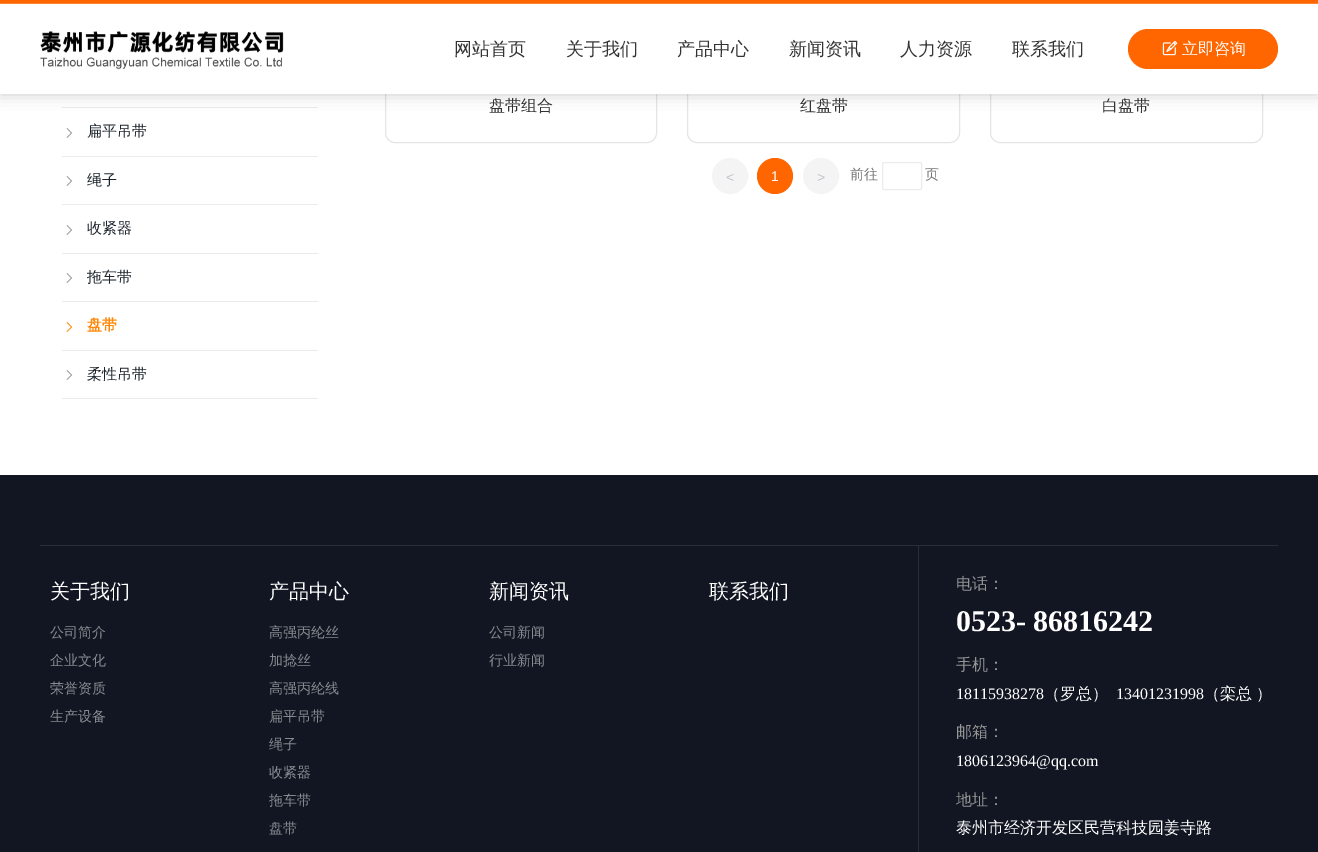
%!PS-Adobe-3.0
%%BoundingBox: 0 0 1318 852
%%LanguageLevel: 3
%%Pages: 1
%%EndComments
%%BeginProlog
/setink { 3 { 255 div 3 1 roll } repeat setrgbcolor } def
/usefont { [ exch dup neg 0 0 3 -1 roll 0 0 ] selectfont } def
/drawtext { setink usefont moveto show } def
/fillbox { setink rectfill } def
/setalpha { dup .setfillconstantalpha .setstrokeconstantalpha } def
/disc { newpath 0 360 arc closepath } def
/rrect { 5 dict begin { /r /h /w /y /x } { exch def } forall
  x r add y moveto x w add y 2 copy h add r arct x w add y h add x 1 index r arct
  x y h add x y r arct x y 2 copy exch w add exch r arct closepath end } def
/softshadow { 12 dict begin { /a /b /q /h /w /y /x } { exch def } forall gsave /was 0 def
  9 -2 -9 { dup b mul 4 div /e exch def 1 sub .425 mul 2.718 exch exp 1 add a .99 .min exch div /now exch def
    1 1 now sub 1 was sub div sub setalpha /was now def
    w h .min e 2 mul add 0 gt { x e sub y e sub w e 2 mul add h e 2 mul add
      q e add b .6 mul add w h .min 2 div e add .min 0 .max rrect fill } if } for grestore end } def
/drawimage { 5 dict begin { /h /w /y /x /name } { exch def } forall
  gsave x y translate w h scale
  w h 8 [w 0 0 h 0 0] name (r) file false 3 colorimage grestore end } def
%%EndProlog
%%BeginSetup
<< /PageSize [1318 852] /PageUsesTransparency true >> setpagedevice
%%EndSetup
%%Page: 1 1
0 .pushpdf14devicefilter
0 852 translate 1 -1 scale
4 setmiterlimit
0 0 1318 852 255 255 255 fillbox
62 107 256 1 235 235 235 fillbox
229 229 229 setink
385.5 -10.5 271 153 9.5 rrect stroke
687.5 -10.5 272 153 9.5 rrect stroke
990.5 -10.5 272 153 9.5 rrect stroke
0 0 0 setink
0 0 1318 94 0 7.5 0.2 softshadow
0 4 1318 90 255 255 255 fillbox
0 0 1318 3 255 102 0 fillbox
0 3 1318 1 255 133 51 fillbox
(assets/img1.rgb) 40 31 244 39 drawimage
(网站首页) 454 55 /WenQuanYiZenHei-Medium 18 51 51 51 drawtext
(关于我们) 566 55 /WenQuanYiZenHei-Medium 18 51 51 51 drawtext
(产品中心) 677 55 /WenQuanYiZenHei-Medium 18 51 51 51 drawtext
(新闻资讯) 789 55 /WenQuanYiZenHei-Medium 18 51 51 51 drawtext
(人力资源) 900 55 /WenQuanYiZenHei-Medium 18 51 51 51 drawtext
(联系我们) 1012 55 /WenQuanYiZenHei-Medium 18 51 51 51 drawtext
255 102 0 setink
1128 29 150 40 20 rrect fill
(assets/img2.rgb) 1162 40 16 16 drawimage
(立即咨询) 1182 54 /WenQuanYiZenHei-Medium 16 255 255 255 drawtext
62 156 256 1 235 235 235 fillbox
(assets/img3.rgb) 66 128 7 10 drawimage
(扁平吊带) 87 136 /WenQuanYiZenHei-Medium 15 27 36 43 drawtext
62 204 256 1 235 235 235 fillbox
(assets/img3.rgb) 66 176 7 10 drawimage
(绳子) 87 185 /WenQuanYiZenHei-Medium 15 27 36 43 drawtext
62 253 256 1 235 235 235 fillbox
(assets/img3.rgb) 66 225 7 10 drawimage
(收紧器) 87 233 /WenQuanYiZenHei-Medium 15 27 36 43 drawtext
62 301 256 1 235 235 235 fillbox
(assets/img3.rgb) 66 273 7 10 drawimage
(拖车带) 87 282 /WenQuanYiZenHei-Medium 15 27 36 43 drawtext
62 350 256 1 235 235 235 fillbox
(assets/img4.rgb) 66 322 7 10 drawimage
(盘带) 87 330 /WenQuanYiZenHei-Bold 15 255 136 8 drawtext
62 398 256 1 235 235 235 fillbox
(assets/img3.rgb) 66 370 7 10 drawimage
(柔性吊带) 87 379 /WenQuanYiZenHei-Medium 15 27 36 43 drawtext
(盘带组合) 489 111 /WenQuanYiZenHei-Medium 16 51 51 51 drawtext
(红盘带) 800 111 /WenQuanYiZenHei-Medium 16 51 51 51 drawtext
(白盘带) 1102 111 /WenQuanYiZenHei-Medium 16 51 51 51 drawtext
244 244 245 setink
730 176 17.5 disc gsave fill grestore
stroke
(<) 726 182 /LiberationSans-Regular 14 192 196 204 drawtext
255 102 0 setink
775 176 18 disc fill
(1) 771 181 /LiberationSans-Regular 14 255 255 255 drawtext
244 244 245 setink
821 176 17.5 disc gsave fill grestore
stroke
(>) 817 182 /LiberationSans-Regular 14 192 196 204 drawtext
(前往) 850 179 /WenQuanYiZenHei-Medium 14 116 116 116 drawtext
235 235 235 setink
882.5 162.5 39 27 1.5 rrect stroke
(页) 925 179 /WenQuanYiZenHei-Medium 14 116 116 116 drawtext
0 475 1318 377 17 22 34 fillbox
40 545 1238 1 41 45 56 fillbox
918 546 1 306 41 45 56 fillbox
(关于我们) 50 598 /WenQuanYiZenHei-Medium 20 255 255 255 drawtext
(公司简介) 50 637 /WenQuanYiZenHei-Medium 14 136 139 145 drawtext
(企业文化) 50 665 /WenQuanYiZenHei-Medium 14 136 139 145 drawtext
(荣誉资质) 50 693 /WenQuanYiZenHei-Medium 14 136 139 145 drawtext
(生产设备) 50 721 /WenQuanYiZenHei-Medium 14 136 139 145 drawtext
(产品中心) 269 598 /WenQuanYiZenHei-Medium 20 255 255 255 drawtext
(高强丙纶丝) 269 637 /WenQuanYiZenHei-Medium 14 136 139 145 drawtext
(加捻丝) 269 665 /WenQuanYiZenHei-Medium 14 136 139 145 drawtext
(高强丙纶线) 269 693 /WenQuanYiZenHei-Medium 14 136 139 145 drawtext
(扁平吊带) 269 721 /WenQuanYiZenHei-Medium 14 136 139 145 drawtext
(绳子) 269 749 /WenQuanYiZenHei-Medium 14 136 139 145 drawtext
(收紧器) 269 777 /WenQuanYiZenHei-Medium 14 136 139 145 drawtext
(拖车带) 269 805 /WenQuanYiZenHei-Medium 14 136 139 145 drawtext
(盘带) 269 833 /WenQuanYiZenHei-Medium 14 136 139 145 drawtext
(新闻资讯) 489 598 /WenQuanYiZenHei-Medium 20 255 255 255 drawtext
(公司新闻) 489 637 /WenQuanYiZenHei-Medium 14 136 139 145 drawtext
(行业新闻) 489 665 /WenQuanYiZenHei-Medium 14 136 139 145 drawtext
gsave
709 571 199 40 rectclip
(联系我们) 709 598 /WenQuanYiZenHei-Medium 20 255 255 255 drawtext
grestore
(电话：) 956 589 /WenQuanYiZenHei-Medium 16 149 149 149 drawtext
(0523- 86816242) 956 631 /LiberationSerif-Bold 30 255 255 255 drawtext
(手机：) 956 670 /WenQuanYiZenHei-Medium 16 149 149 149 drawtext
(18115938278) 956 699 /LiberationSerif-Regular 16 255 255 255 drawtext
(（罗总）) 1044 699 /WenQuanYiZenHei-Medium 16 255 255 255 drawtext
(13401231998) 1116 699 /LiberationSerif-Regular 16 255 255 255 drawtext
(（栾总) 1204 699 /WenQuanYiZenHei-Medium 16 255 255 255 drawtext
(）) 1256 699 /WenQuanYiZenHei-Medium 16 255 255 255 drawtext
(邮箱：) 956 737 /WenQuanYiZenHei-Medium 16 149 149 149 drawtext
(1806123964@qq.com) 956 766 /LiberationSerif-Regular 16 255 255 255 drawtext
(地址：) 956 805 /WenQuanYiZenHei-Medium 16 149 149 149 drawtext
(泰州市经济开发区民营科技园姜寺路) 956 833 /WenQuanYiZenHei-Medium 16 255 255 255 drawtext
.poppdf14devicefilter showpage
%%EOF
